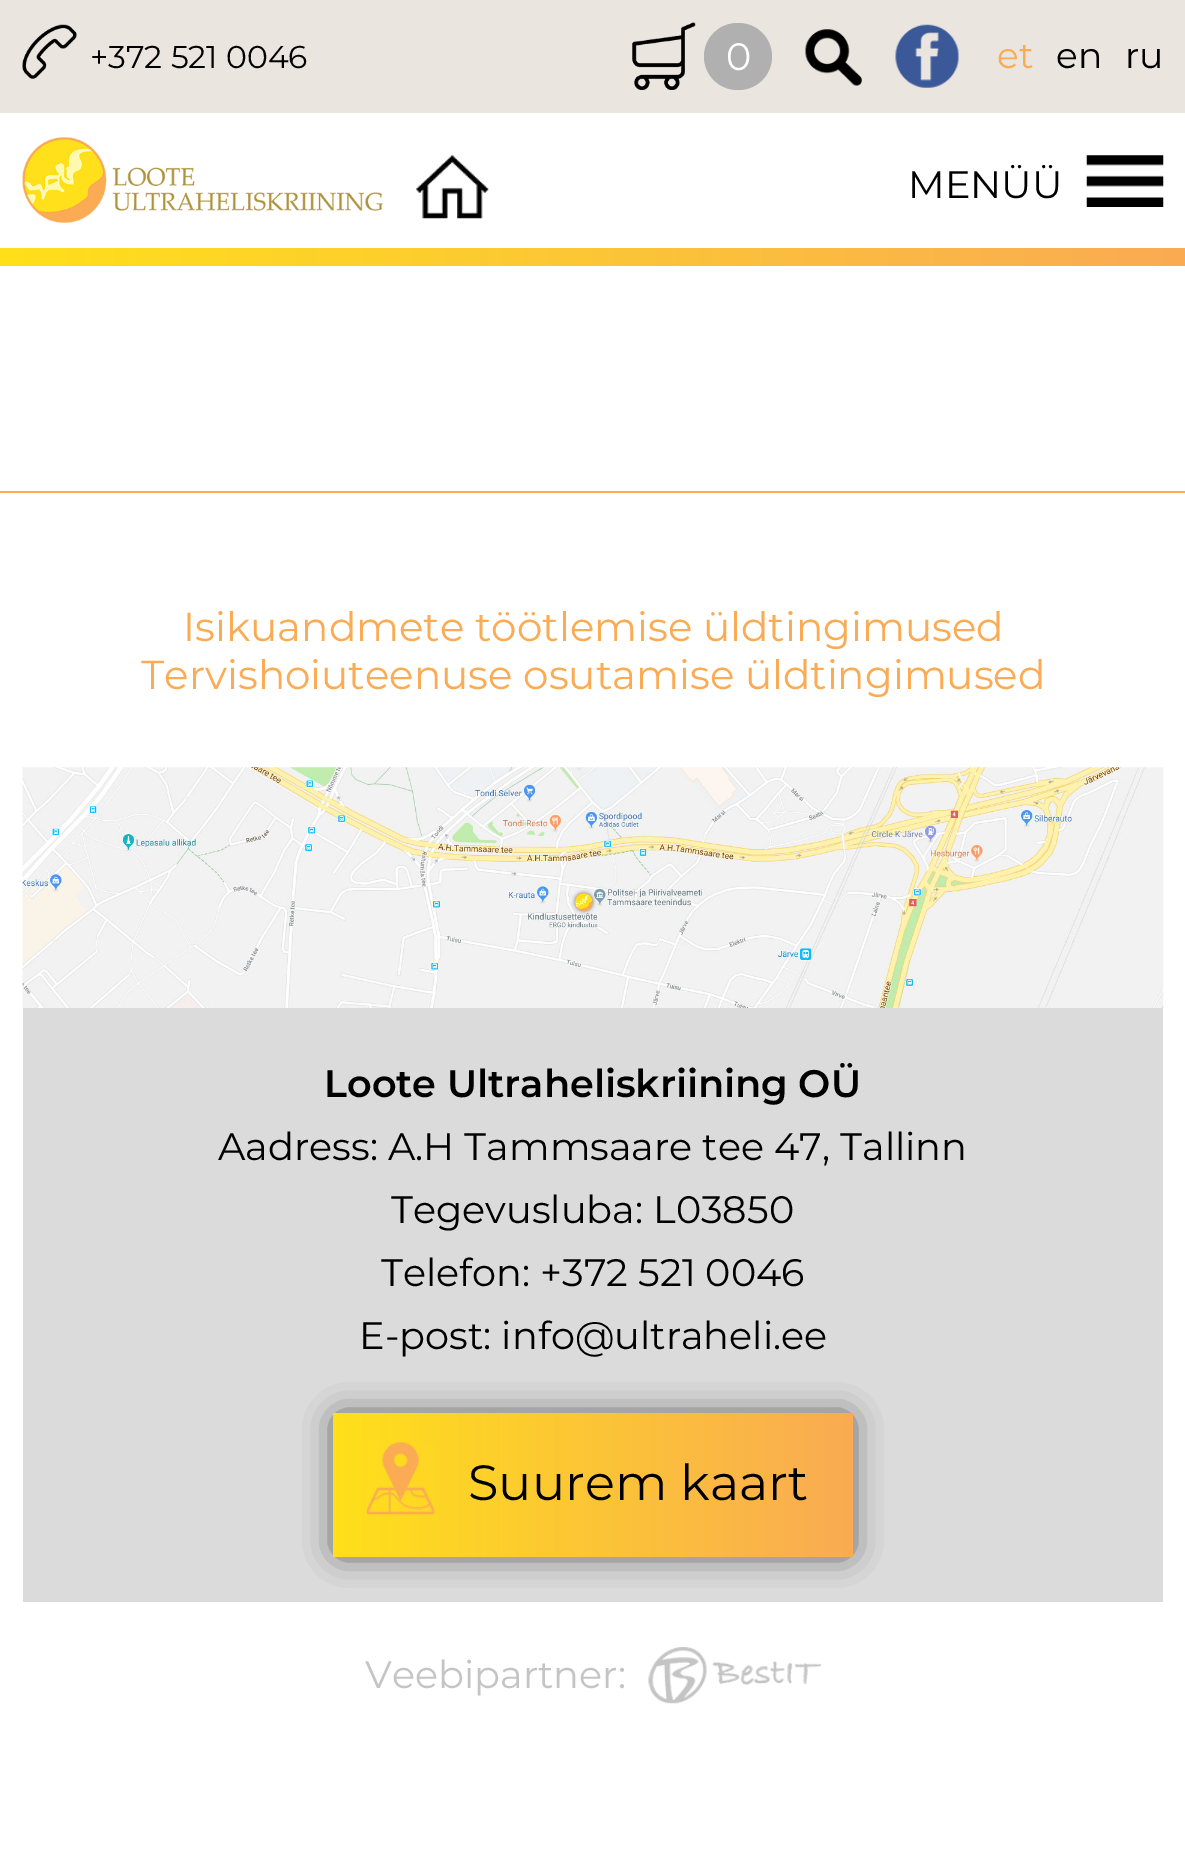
%!PS-Adobe-3.0
%%BoundingBox: 0 0 1185 1858
%%LanguageLevel: 3
%%Pages: 1
%%EndComments
%%BeginProlog
/setink { 3 { 255 div 3 1 roll } repeat setrgbcolor } def
/usefont { [ exch dup neg 0 0 3 -1 roll 0 0 ] selectfont } def
/drawtext { setink usefont moveto show } def
/fillbox { setink rectfill } def
/setalpha { dup .setfillconstantalpha .setstrokeconstantalpha } def
/rrect { 5 dict begin { /r /h /w /y /x } { exch def } forall
  x r add y moveto x w add y 2 copy h add r arct x w add y h add x 1 index r arct
  x y h add x y r arct x y 2 copy exch w add exch r arct closepath end } def
/softshadow { 12 dict begin { /a /b /q /h /w /y /x } { exch def } forall gsave /was 0 def
  9 -2 -9 { dup b mul 4 div /e exch def 1 sub .425 mul 2.718 exch exp 1 add a .99 .min exch div /now exch def
    1 1 now sub 1 was sub div sub setalpha /was now def
    w h .min e 2 mul add 0 gt { x e sub y e sub w e 2 mul add h e 2 mul add
      q e add b .6 mul add w h .min 2 div e add .min 0 .max rrect fill } if } for grestore end } def
/drawimage { 5 dict begin { /h /w /y /x /name } { exch def } forall
  gsave x y translate w h scale
  w h 8 [w 0 0 h 0 0] name (r) file false 3 colorimage grestore end } def
%%EndProlog
%%BeginSetup
<< /PageSize [1185 1858] /PageUsesTransparency true >> setpagedevice
%%EndSetup
%%Page: 1 1
0 .pushpdf14devicefilter
0 1858 translate 1 -1 scale
4 setmiterlimit
0 0 1185 1858 255 255 255 fillbox
0 0 1185 113 235 229 223 fillbox
(assets/img1.rgb) 22 24 55 55 drawimage
(+372 521 0046) 90 68 /Montserrat-Regular 31.5 0 0 0 drawtext
176 176 176 setink
704 23 68 67 33.5 rrect fill
(assets/img2.rgb) 632 22 64 68 drawimage
(0) 726 70 /Montserrat-Regular 38.25 255 255 255 drawtext
(assets/img3.rgb) 805 29 57 57 drawimage
(assets/img4.rgb) 895 24 64 64 drawimage
(et) 997 68 /Montserrat-Regular 36 250 171 83 drawtext
(en) 1056 68 /Montserrat-Regular 36 0 0 0 drawtext
(ru) 1125 68 /Montserrat-Regular 36 0 0 0 drawtext
(assets/img5.rgb) 22 137 361 86 drawimage
(assets/img6.rgb) 416 155 73 64 drawimage
(assets/img7.rgb) 1086 155 78 52 drawimage
(MENÜÜ) 908 198 /Montserrat-Regular 38.25 0 0 0 drawtext
gsave 0 248 moveto 1185 248 lineto 1185 266 lineto 0 266 lineto closepath clip newpath
<< /ShadingType 2 /ColorSpace /DeviceRGB /Coords [0 257 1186 256] /Extend [true true] /Function << /FunctionType 2 /Domain [0 1] /C0 [1 0.878 0.102] /C1 [0.98 0.671 0.325] /N 1 >> >> shfill grestore
0 491 1185 2 250 171 83 fillbox
(Isikuandmete töötlemise üldtingimused) 183 641 /Montserrat-Regular 40.5 250 171 83 drawtext
(Tervishoiuteenuse osutamise üldtingimused) 141 689 /Montserrat-Regular 40.5 250 171 83 drawtext
(assets/img8.rgb) 22 767 1142 241 drawimage
23 1008 1140 594 219 219 219 fillbox
(Loote Ultraheliskriining OÜ) 324 1097 /Montserrat-SemiBold 38.25 0 0 0 drawtext
(Aadress: A.H Tammsaare tee 47, Tallinn) 218 1160 /Montserrat-Regular 38.25 0 0 0 drawtext
(Tegevusluba: L03850) 391 1223 /Montserrat-Regular 38.25 0 0 0 drawtext
(Telefon: +372 521 0046) 381 1286 /Montserrat-Regular 38.25 0 0 0 drawtext
(E-post: info@ultraheli.ee) 359 1349 /Montserrat-Regular 38.25 0 0 0 drawtext
34 34 34 setink
340 1420 506 130 0 17 1 softshadow
gsave 333 1413 moveto 853 1413 lineto 853 1557 lineto 333 1557 lineto closepath clip newpath
<< /ShadingType 2 /ColorSpace /DeviceRGB /Coords [333 1485 853 1485] /Extend [true true] /Function << /FunctionType 2 /Domain [0 1] /C0 [1 0.878 0.102] /C1 [0.98 0.671 0.325] /N 1 >> >> shfill grestore
(assets/img9.rgb) 366 1442 69 73 drawimage
(Suurem kaart) 468 1500 /Montserrat-Regular 49.5 0 0 0 drawtext
(Veebipartner:) 365 1688 /Montserrat-Regular 38.25 196 196 196 drawtext
(assets/img10.rgb) 648 1647 174 57 drawimage
.poppdf14devicefilter showpage
%%EOF
